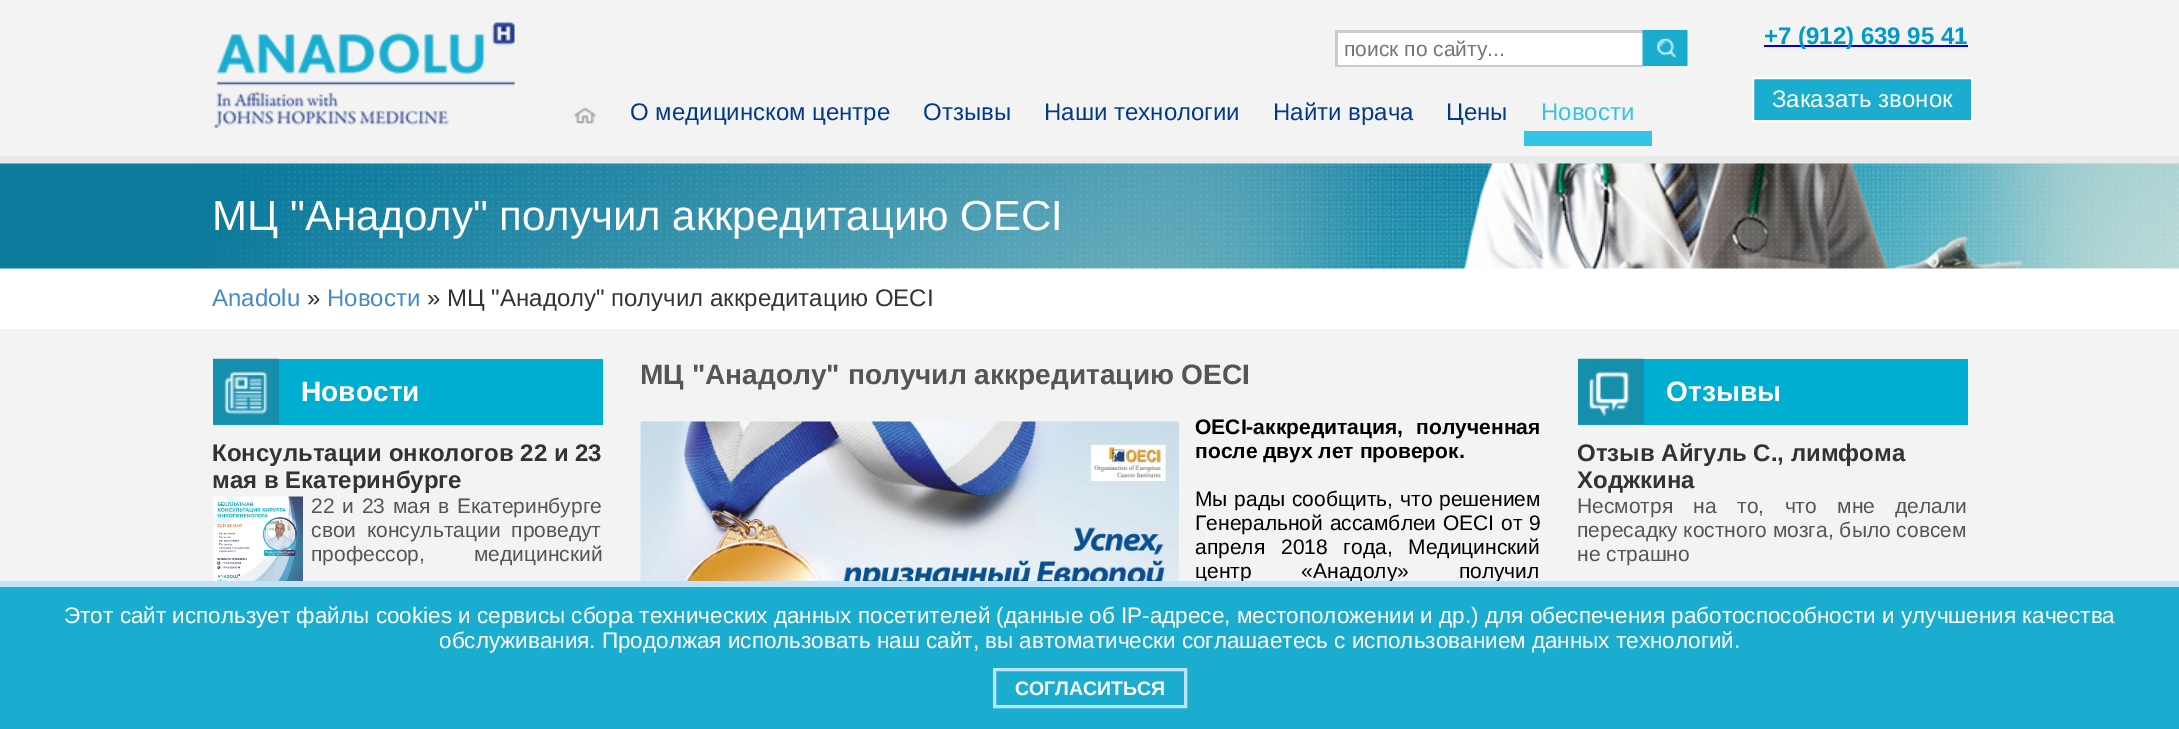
%!PS-Adobe-3.0
%%BoundingBox: 0 0 2179 729
%%LanguageLevel: 3
%%Pages: 1
%%EndComments
%%BeginProlog
/setink { 3 { 255 div 3 1 roll } repeat setrgbcolor } def
/usefont { [ exch dup neg 0 0 3 -1 roll 0 0 ] selectfont } def
/drawtext { setink usefont moveto show } def
/fillbox { setink rectfill } def
/drawimage { 5 dict begin { /h /w /y /x /name } { exch def } forall
  gsave x y translate w h scale
  w h 8 [w 0 0 h 0 0] name (r) file false 3 colorimage grestore end } def
%%EndProlog
%%BeginSetup
<< /PageSize [2179 729] >> setpagedevice
%%EndSetup
%%Page: 1 1
0 729 translate 1 -1 scale
4 setmiterlimit
0 0 2179 729 255 255 255 fillbox
0 0 2179 156 243 243 243 fillbox
0 156 2179 8 233 233 233 fillbox
(assets/img1.rgb) 214 22 301 106 drawimage
1338 33 305 32 255 255 255 fillbox
gsave
1337 32 306 33 rectclip
204 204 204 setink
1188 -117 moveto 1791 -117 lineto 1791 213 lineto 1188 213 lineto closepath 1338 33 moveto 1644 33 lineto 1644 66 lineto 1338 66 lineto closepath eofill
grestore
1335 30 308 2 204 204 204 fillbox
1335 65 308 2 204 204 204 fillbox
1335 30 2 36 204 204 204 fillbox
gsave
1344 36 291 24 rectclip
(поиск по сайту...) 1344 56 /LiberationSans-Regular 21 117 117 117 drawtext
grestore
(assets/img2.rgb) 1642 30 46 36 drawimage
(assets/img3.rgb) 574 107 22 17 drawimage
(О медицинском центре) 630 120 /LiberationSans-Regular 24 0 57 138 drawtext
(Отзывы) 923 120 /LiberationSans-Regular 24 0 57 138 drawtext
(Наши технологии) 1044 120 /LiberationSans-Regular 24 0 57 138 drawtext
(Найти врача) 1273 120 /LiberationSans-Regular 24 0 57 138 drawtext
(Цены) 1446 120 /LiberationSans-Regular 24 0 57 138 drawtext
1524 131 128 15 51 195 229 fillbox
(Новости) 1541 120 /LiberationSans-Regular 24 51 195 229 drawtext
1764 45 204 2 0 0 238 fillbox
(+7 \(912\) 639 95 41) 1764 44 /LiberationSans-Bold 24 0 153 204 drawtext
26 173 207 setink
1753 78 moveto 1972 78 lineto 1972 121 lineto 1753 121 lineto closepath gsave fill grestore
255 255 255 setink
2 setlinewidth
stroke
(Заказать звонок) 1772 107 /LiberationSans-Regular 24 255 255 255 drawtext
(assets/img4.rgb) 0 163 2179 106 drawimage
(МЦ "Анадолу" получил аккредитацию OECI) 212 230 /LiberationSans-Regular 42 255 255 255 drawtext
(Anadolu) 212 306 /LiberationSans-Regular 24 67 138 202 drawtext
(») 307 306 /LiberationSans-Regular 24 51 51 51 drawtext
(Новости) 327 306 /LiberationSans-Regular 24 67 138 202 drawtext
(» МЦ "Анадолу" получил аккредитацию OECI) 427 306 /LiberationSans-Regular 24 51 51 51 drawtext
0 329 2179 252 243 243 243 fillbox
213 359 390 66 0 174 209 fillbox
(assets/img5.rgb) 213 358 66 67 drawimage
(Новости) 301 401 /LiberationSans-Bold 28.1 255 255 255 drawtext
(Консультации онкологов 22 и 23) 212 461 /LiberationSans-Bold 24 51 51 51 drawtext
(мая в Екатеринбурге) 212 488 /LiberationSans-Bold 24 51 51 51 drawtext
(assets/img6.rgb) 213 496 90 85 drawimage
/LiberationSans-Regular 21 usefont
85 85 85 setink
311 513 moveto 2 0 32 (22 и 23 мая в Екатеринбурге) widthshow
311 537 moveto 5 0 32 (свои консультации проведут) widthshow
311 561 moveto 43 0 32 (профессор, медицинский) widthshow
(МЦ "Анадолу" получил аккредитацию) 640 384 /LiberationSans-Bold 28.1 85 85 85 drawtext
(OECI) 1181 384 /LiberationSans-Bold 28.1 85 85 85 drawtext
(assets/img7.rgb) 640 421 539 160 drawimage
/LiberationSans-Bold 21 usefont
0 0 0 setink
1195 434 moveto 8 0 32 (OECI-аккредитация, полученная) widthshow
(после двух лет проверок.) 1195 458 /LiberationSans-Bold 21 0 0 0 drawtext
/LiberationSans-Regular 21 usefont
1195 506 moveto 1 0 32 (Мы рады сообщить, что решением) widthshow
1195 530 moveto 1 0 32 (Генеральной ассамблеи OECI от 9) widthshow
1195 554 moveto 10 0 32 (апреля 2018 года, Медицинский) widthshow
1195 578 moveto 44 0 32 (центр «Анадолу» получил) widthshow
1578 359 390 66 0 174 209 fillbox
(assets/img8.rgb) 1578 358 66 67 drawimage
(Отзывы) 1666 401 /LiberationSans-Bold 28.1 255 255 255 drawtext
(Отзыв Айгуль С., лимфома) 1577 461 /LiberationSans-Bold 24 51 51 51 drawtext
(Ходжкина) 1577 488 /LiberationSans-Bold 24 51 51 51 drawtext
/LiberationSans-Regular 21 usefont
85 85 85 setink
1577 513 moveto 14.5 0 32 (Несмотря на то, что мне делали) widthshow
(пересадку костного мозга, было совсем) 1577 537 /LiberationSans-Regular 21 85 85 85 drawtext
(не страшно) 1577 561 /LiberationSans-Regular 21 85 85 85 drawtext
0 587 2179 142 27 173 207 fillbox
0 581 2179 6 191 226 255 fillbox
(Этот сайт использует файлы cookies и сервисы сбора технических данных посетителей \(данные об IP-адресе, местоположении и др.\) для обеспечения работоспособности и улучшения качества) 64 623 /LiberationSans-Regular 22.5 255 255 255 drawtext
(обслуживания. Продолжая использовать наш сайт, вы автоматически соглашаетесь с использованием данных технологий.) 439 648 /LiberationSans-Regular 22.5 255 255 255 drawtext
191 226 255 setink
3 setlinewidth
994.5 669.5 191 37 rectstroke
(СОГЛАСИТЬСЯ) 1015 695 /LiberationSans-Bold 19.5 255 255 255 drawtext
showpage
%%EOF
